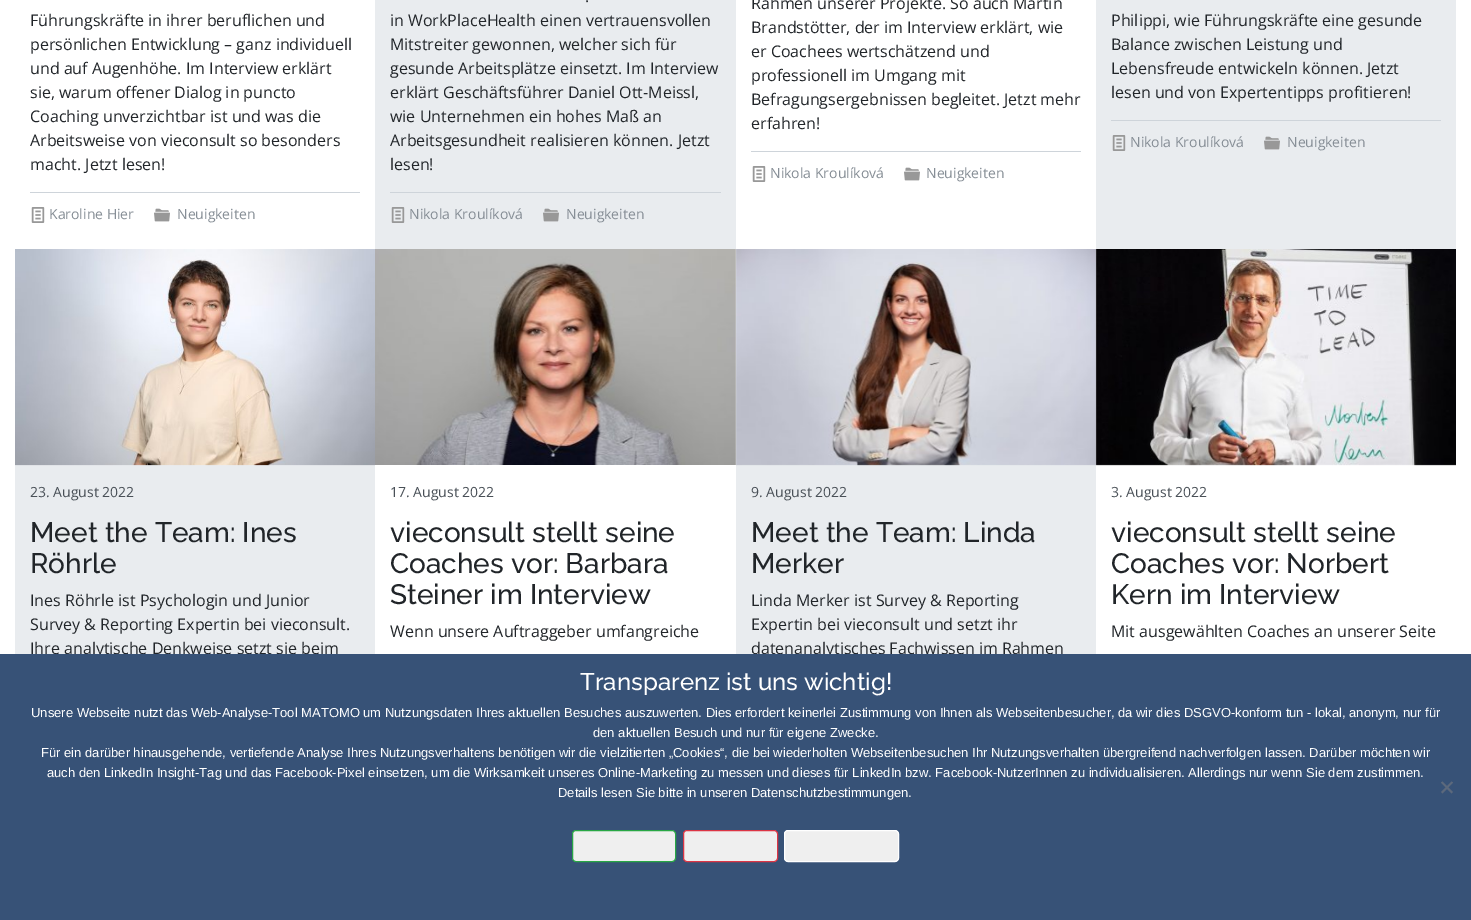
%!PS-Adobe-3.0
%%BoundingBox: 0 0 1471 920
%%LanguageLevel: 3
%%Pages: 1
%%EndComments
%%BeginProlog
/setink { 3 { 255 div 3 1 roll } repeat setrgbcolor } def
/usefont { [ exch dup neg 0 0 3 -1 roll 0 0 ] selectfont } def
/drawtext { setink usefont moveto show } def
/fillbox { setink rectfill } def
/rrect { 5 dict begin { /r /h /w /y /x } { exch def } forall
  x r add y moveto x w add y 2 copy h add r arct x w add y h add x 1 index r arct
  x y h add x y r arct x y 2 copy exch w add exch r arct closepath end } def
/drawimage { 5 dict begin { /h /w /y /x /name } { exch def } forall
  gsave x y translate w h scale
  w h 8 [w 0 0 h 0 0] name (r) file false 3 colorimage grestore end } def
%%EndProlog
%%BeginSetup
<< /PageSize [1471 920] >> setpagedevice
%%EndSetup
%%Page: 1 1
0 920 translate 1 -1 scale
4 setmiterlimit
0 0 1471 920 255 255 255 fillbox
(Führungskräfte in ihrer beruflichen und) 30 26 /OpenSans-Regular 16 33 37 41 drawtext
(persönlichen Entwicklung – ganz individuell) 30 50 /OpenSans-Regular 16 33 37 41 drawtext
(und auf Augenhöhe. Im Interview erklärt) 30 74 /OpenSans-Regular 16 33 37 41 drawtext
(sie, warum offener Dialog in puncto) 30 98 /OpenSans-Regular 16 33 37 41 drawtext
(Coaching unverzichtbar ist und was die) 30 122 /OpenSans-Regular 16 33 37 41 drawtext
(Arbeitsweise von vieconsult so besonders) 30 146 /OpenSans-Regular 16 33 37 41 drawtext
(macht. Jetzt lesen!) 30 170 /OpenSans-Regular 16 33 37 41 drawtext
30 192 330 1 206 212 218 fillbox
(assets/img1.rgb) 31 207 14 16 drawimage
(Karoline Hier) 49 219 /OpenSans-Regular 14 134 142 150 drawtext
(assets/img2.rgb) 154 208 16 14 drawimage
(Neuigkeiten) 177 219 /OpenSans-Regular 14 134 142 150 drawtext
375 0 361 249 233 236 239 fillbox
(.) 585 2 /OpenSans-Regular 16 33 37 41 drawtext
(in WorkPlaceHealth einen vertrauensvollen) 390 26 /OpenSans-Regular 16 33 37 41 drawtext
(Mitstreiter gewonnen, welcher sich für) 390 50 /OpenSans-Regular 16 33 37 41 drawtext
(gesunde Arbeitsplätze einsetzt. Im Interview) 390 74 /OpenSans-Regular 16 33 37 41 drawtext
(erklärt Geschäftsführer Daniel Ott-Meissl,) 390 98 /OpenSans-Regular 16 33 37 41 drawtext
(wie Unternehmen ein hohes Maß an) 390 122 /OpenSans-Regular 16 33 37 41 drawtext
(Arbeitsgesundheit realisieren können. Jetzt) 390 146 /OpenSans-Regular 16 33 37 41 drawtext
(lesen!) 390 170 /OpenSans-Regular 16 33 37 41 drawtext
390 192 331 1 206 212 218 fillbox
(assets/img3.rgb) 391 207 14 16 drawimage
(Nikola Kroulíková) 409 219 /OpenSans-Regular 14 134 142 150 drawtext
(assets/img4.rgb) 543 208 16 14 drawimage
(Neuigkeiten) 566 219 /OpenSans-Regular 14 134 142 150 drawtext
(Rahmen unserer Projekte. So auch Martin) 751 9 /OpenSans-Regular 16 33 37 41 drawtext
(Brandstötter, der im Interview erklärt, wie) 751 33 /OpenSans-Regular 16 33 37 41 drawtext
(er Coachees wertschätzend und) 751 57 /OpenSans-Regular 16 33 37 41 drawtext
(professionell im Umgang mit) 751 81 /OpenSans-Regular 16 33 37 41 drawtext
(Befragungsergebnissen begleitet. Jetzt mehr) 751 105 /OpenSans-Regular 16 33 37 41 drawtext
(erfahren!) 751 129 /OpenSans-Regular 16 33 37 41 drawtext
751 151 330 1 206 212 218 fillbox
(assets/img1.rgb) 752 166 14 16 drawimage
(Nikola Kroulíková) 770 178 /OpenSans-Regular 14 134 142 150 drawtext
(assets/img2.rgb) 904 167 16 14 drawimage
(Neuigkeiten) 926 178 /OpenSans-Regular 14 134 142 150 drawtext
1096 0 360 249 233 236 239 fillbox
(Philippi, wie Führungskräfte eine gesunde) 1111 26 /OpenSans-Regular 16 33 37 41 drawtext
(Balance zwischen Leistung und) 1111 50 /OpenSans-Regular 16 33 37 41 drawtext
(Lebensfreude entwickeln können. Jetzt) 1111 74 /OpenSans-Regular 16 33 37 41 drawtext
(lesen und von Expertentipps profitieren!) 1111 98 /OpenSans-Regular 16 33 37 41 drawtext
1111 120 330 1 206 212 218 fillbox
(assets/img3.rgb) 1112 135 14 16 drawimage
(Nikola Kroulíková) 1130 147 /OpenSans-Regular 14 134 142 150 drawtext
(assets/img4.rgb) 1264 136 16 14 drawimage
(Neuigkeiten) 1287 147 /OpenSans-Regular 14 134 142 150 drawtext
15 465 360 189 233 236 239 fillbox
(assets/img5.rgb) 15 249 360 217 drawimage
(23. August 2022) 30 497 /OpenSans-Regular 14 73 80 87 drawtext
(Meet the Team: Ines) 30 542 /Raleway-Medium 28 33 37 41 drawtext
(Röhrle) 30 573 /Raleway-Medium 28 33 37 41 drawtext
(Ines Röhrle ist Psychologin und Junior) 30 606 /OpenSans-Regular 16 33 37 41 drawtext
(Survey & Reporting Expertin bei vieconsult.) 30 630 /OpenSans-Regular 16 33 37 41 drawtext
(Ihre analytische Denkweise setzt sie beim) 30 654 /OpenSans-Regular 16 33 37 41 drawtext
(assets/img6.rgb) 375 249 361 216 drawimage
(17. August 2022) 390 497 /OpenSans-Regular 14 73 80 87 drawtext
(vieconsult stellt seine) 390 542 /Raleway-Medium 28 33 37 41 drawtext
(Coaches vor: Barbara) 390 573 /Raleway-Medium 28 33 37 41 drawtext
(Steiner im Interview) 390 604 /Raleway-Medium 28 33 37 41 drawtext
(Wenn unsere Auftraggeber umfangreiche) 390 637 /OpenSans-Regular 16 33 37 41 drawtext
736 249 360 405 233 236 239 fillbox
(assets/img7.rgb) 736 249 360 217 drawimage
(9. August 2022) 751 497 /OpenSans-Regular 14 73 80 87 drawtext
(Meet the Team: Linda) 751 542 /Raleway-Medium 28 33 37 41 drawtext
(Merker) 751 573 /Raleway-Medium 28 33 37 41 drawtext
(Linda Merker ist Survey & Reporting) 751 606 /OpenSans-Regular 16 33 37 41 drawtext
(Expertin bei vieconsult und setzt ihr) 751 630 /OpenSans-Regular 16 33 37 41 drawtext
(datenanalytisches Fachwissen im Rahmen) 751 654 /OpenSans-Regular 16 33 37 41 drawtext
(assets/img8.rgb) 1095 249 361 217 drawimage
(3. August 2022) 1111 497 /OpenSans-Regular 14 73 80 87 drawtext
(vieconsult stellt seine) 1111 542 /Raleway-Medium 28 33 37 41 drawtext
(Coaches vor: Norbert) 1111 573 /Raleway-Medium 28 33 37 41 drawtext
(Kern im Interview) 1111 604 /Raleway-Medium 28 33 37 41 drawtext
(Mit ausgewählten Coaches an unserer Seite) 1111 637 /OpenSans-Regular 16 33 37 41 drawtext
0 654 1471 266 55 82 119 fillbox
(Transparenz ist uns wichtig!) 580 690 /Raleway-Medium 24 255 255 255 drawtext
(Unsere Webseite nutzt das Web-Analyse-Tool MATOMO um Nutzungsdaten Ihres aktuellen Besuches auszuwerten. Dies erfordert keinerlei Zustimmung von Ihnen als Webseitenbesucher, da wir dies DSGVO-konform tun - lokal, anonym, nur für) 31 717 /LiberationSans-Regular 13 255 255 255 drawtext
(den aktuellen Besuch und nur für eigene Zwecke.) 593 737 /LiberationSans-Regular 13 255 255 255 drawtext
(Für ein darüber hinausgehende, vertiefende Analyse Ihres Nutzungsverhaltens benötigen wir die vielzitierten „Cookies“, die bei wiederholten Webseitenbesuchen Ihr Nutzungsverhalten übergreifend nachverfolgen lassen. Darüber möchten wir) 41 757 /LiberationSans-Regular 13 255 255 255 drawtext
(auch den LinkedIn Insight-Tag und das Facebook-Pixel einsetzen, um die Wirksamkeit unseres Online-Marketing zu messen und dieses für LinkedIn bzw. Facebook-NutzerInnen zu individualisieren. Allerdings nur wenn Sie dem zustimmen.) 47 777 /LiberationSans-Regular 13 255 255 255 drawtext
(Details lesen Sie bitte in unseren Datenschutzbestimmungen.) 558 797 /LiberationSans-Regular 13 255 255 255 drawtext
92 105 124 setink
1451.5 781.5 moveto 1453 782.5 lineto 1442.5 793.5 lineto 1441 792 lineto closepath fill
1441 782.5 moveto 1442.5 781.5 lineto 1453 792 lineto 1451.5 793.5 lineto closepath fill
239 239 239 setink
572.5 830.5 103 31 3.5 rrect gsave fill grestore
40 167 69 setink
stroke
239 239 239 setink
683.5 830.5 94 31 3.5 rrect gsave fill grestore
220 53 69 setink
stroke
239 239 239 setink
784.5 830.5 114 31 3.5 rrect gsave fill grestore
255 255 255 setink
stroke
showpage
%%EOF
